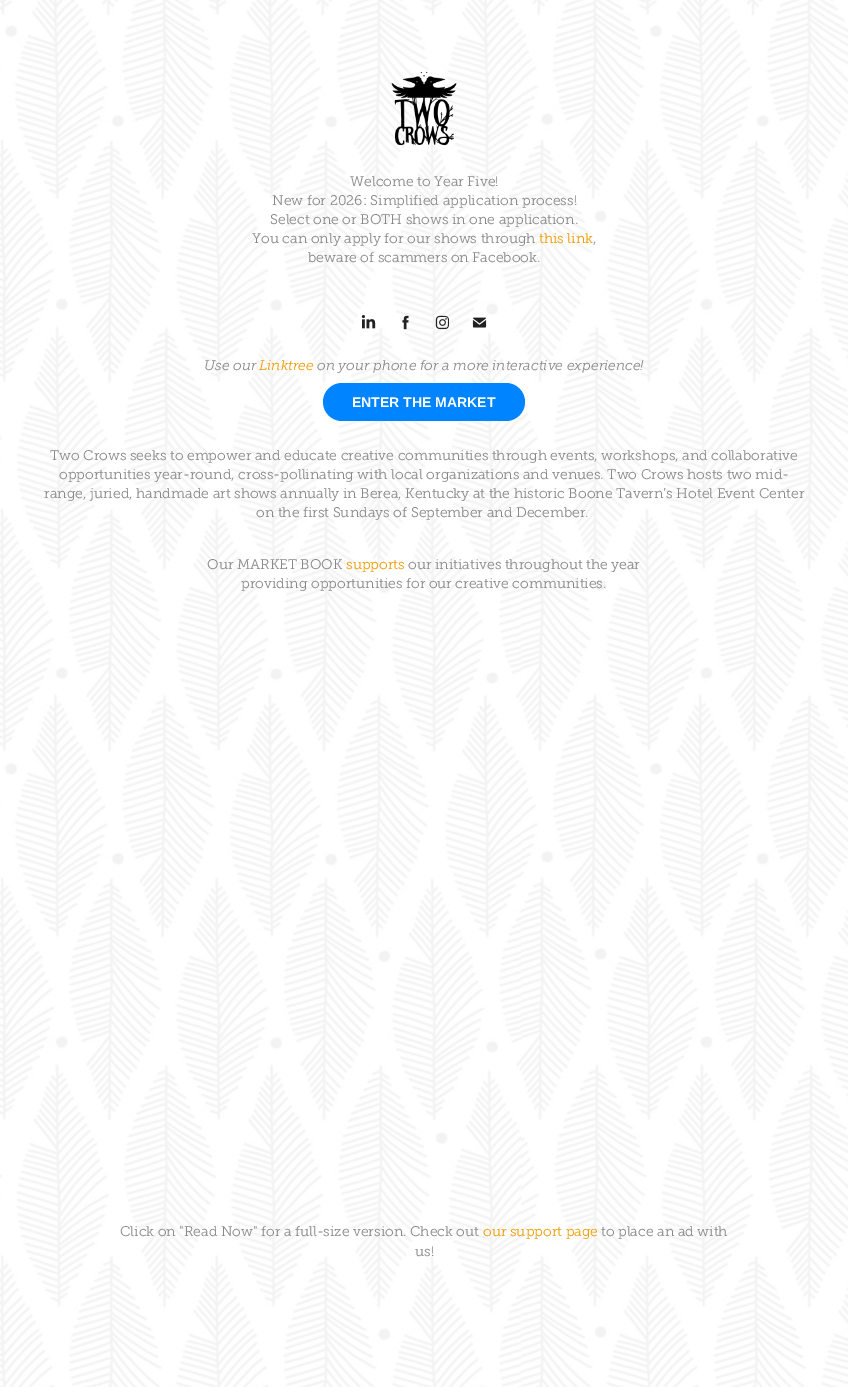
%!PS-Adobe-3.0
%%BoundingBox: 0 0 848 1387
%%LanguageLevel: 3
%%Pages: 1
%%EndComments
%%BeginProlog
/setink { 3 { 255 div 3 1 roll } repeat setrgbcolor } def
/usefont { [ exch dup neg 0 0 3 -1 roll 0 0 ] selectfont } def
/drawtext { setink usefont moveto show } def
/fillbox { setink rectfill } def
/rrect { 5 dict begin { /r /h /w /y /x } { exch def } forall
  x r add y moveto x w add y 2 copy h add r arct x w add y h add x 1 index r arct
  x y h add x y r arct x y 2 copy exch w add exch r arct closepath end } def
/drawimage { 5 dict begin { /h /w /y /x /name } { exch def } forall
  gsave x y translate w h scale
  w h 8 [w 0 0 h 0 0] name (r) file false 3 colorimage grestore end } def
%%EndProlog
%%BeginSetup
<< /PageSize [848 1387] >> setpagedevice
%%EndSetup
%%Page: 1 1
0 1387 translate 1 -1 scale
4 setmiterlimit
0 0 848 1387 255 255 255 fillbox
(assets/img1.rgb) 0 0 848 1387 drawimage
(assets/img2.rgb) 391 71 66 75 drawimage
(Welcome to Year Five!) 350 186 /MuseoSlab-Light 14 136 136 136 drawtext
(New for 2026: Simplified application process!) 272 205 /MuseoSlab-Light 14 136 136 136 drawtext
(Select one or BOTH shows in one application.) 270 224 /MuseoSlab-Light 14 136 136 136 drawtext
(You can only apply for our shows through) 252 243 /MuseoSlab-Light 14 136 136 136 drawtext
(this link) 539 243 /MuseoSlab-Light 14 238 155 0 drawtext
(,) 593 243 /MuseoSlab-Light 14 136 136 136 drawtext
(beware of scammers on Facebook.) 308 262 /MuseoSlab-Light 14 136 136 136 drawtext
(assets/img3.rgb) 361 315 15 14 drawimage
(assets/img4.rgb) 402 315 7 15 drawimage
(assets/img5.rgb) 435 315 14 15 drawimage
(assets/img6.rgb) 472 317 15 11 drawimage
(Use our) 204 370 /MuseoSlab-LightItalic 14 136 136 136 drawtext
(Linktree) 259 370 /MuseoSlab-LightItalic 14 238 155 0 drawtext
(on your phone for a more interactive experience!) 317 370 /MuseoSlab-LightItalic 14 136 136 136 drawtext
0 132 255 setink
323 383 202 38 19 rrect fill
(ENTER THE MARKET) 352 407 /LiberationSans-Bold 14 255 255 255 drawtext
(Two Crows seeks to empower and educate creative communities through events, workshops, and collaborative) 50 460 /MuseoSlab-Light 14 136 136 136 drawtext
(opportunities year-round, cross-pollinating with local organizations and venues. Two Crows hosts two mid-) 59 479 /MuseoSlab-Light 14 136 136 136 drawtext
(range, juried, handmade art shows annually in Berea, Kentucky at the historic Boone Tavern’s Hotel Event Center) 44 498 /MuseoSlab-Light 14 136 136 136 drawtext
(on the first Sundays of September and December.) 256 517 /MuseoSlab-Light 14 136 136 136 drawtext
(Our MARKET BOOK) 207 569 /MuseoSlab-Light 14 136 136 136 drawtext
(supports) 346 569 /MuseoSlab-Light 14 238 155 0 drawtext
(our initiatives throughout the year) 408 569 /MuseoSlab-Light 14 136 136 136 drawtext
(providing opportunities for our creative communities.) 241 588 /MuseoSlab-Light 14 136 136 136 drawtext
(Click on "Read Now" for a full-size version. Check out) 120 1236 /MuseoSlab-Light 14 136 136 136 drawtext
(our support page) 483 1236 /MuseoSlab-Light 14 238 155 0 drawtext
(to place an ad with) 601 1236 /MuseoSlab-Light 14 136 136 136 drawtext
(us!) 415 1256 /MuseoSlab-Light 14 136 136 136 drawtext
showpage
%%EOF
